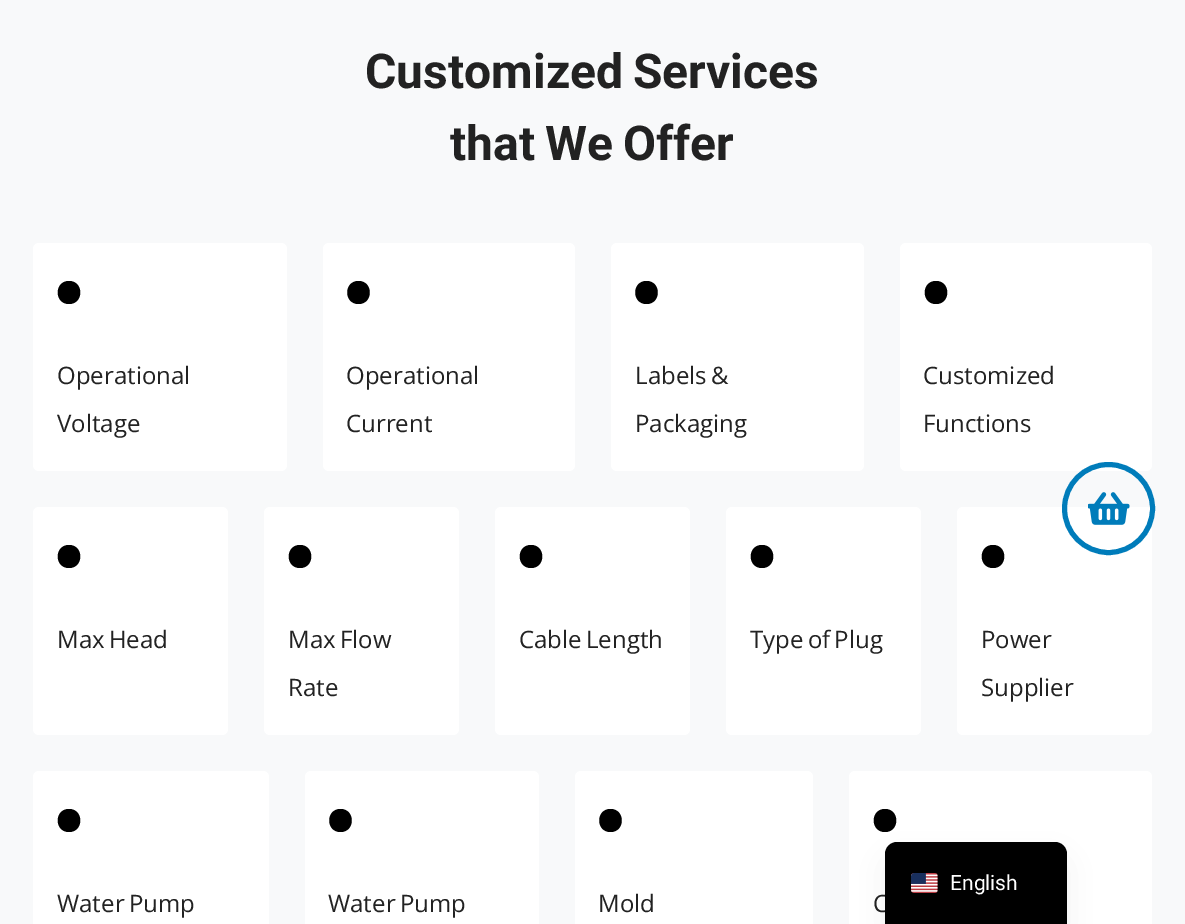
%!PS-Adobe-3.0
%%BoundingBox: 0 0 1185 924
%%LanguageLevel: 3
%%Pages: 1
%%EndComments
%%BeginProlog
/setink { 3 { 255 div 3 1 roll } repeat setrgbcolor } def
/usefont { [ exch dup neg 0 0 3 -1 roll 0 0 ] selectfont } def
/drawtext { setink usefont moveto show } def
/fillbox { setink rectfill } def
/setalpha { dup .setfillconstantalpha .setstrokeconstantalpha } def
/disc { newpath 0 360 arc closepath } def
/rrect { 5 dict begin { /r /h /w /y /x } { exch def } forall
  x r add y moveto x w add y 2 copy h add r arct x w add y h add x 1 index r arct
  x y h add x y r arct x y 2 copy exch w add exch r arct closepath end } def
/softshadow { 12 dict begin { /a /b /q /h /w /y /x } { exch def } forall gsave /was 0 def
  9 -2 -9 { dup b mul 4 div /e exch def 1 sub .425 mul 2.718 exch exp 1 add a .99 .min exch div /now exch def
    1 1 now sub 1 was sub div sub setalpha /was now def
    w h .min e 2 mul add 0 gt { x e sub y e sub w e 2 mul add h e 2 mul add
      q e add b .6 mul add w h .min 2 div e add .min 0 .max rrect fill } if } for grestore end } def
/drawimage { 5 dict begin { /h /w /y /x /name } { exch def } forall
  gsave x y translate w h scale
  w h 8 [w 0 0 h 0 0] name (r) file false 3 colorimage grestore end } def
%%EndProlog
%%BeginSetup
<< /PageSize [1185 924] /PageUsesTransparency true >> setpagedevice
%%EndSetup
%%Page: 1 1
0 .pushpdf14devicefilter
0 924 translate 1 -1 scale
4 setmiterlimit
0 0 1185 924 248 249 250 fillbox
/Roboto-Bold 48 usefont
34 34 34 setink
365 88 moveto -2 0 32 (Customized Services) widthshow
450 160 moveto -2 0 32 (that We Offer) widthshow
255 255 255 setink
33 243 254 228 6 rrect fill
0 0 0 setink
69 281 moveto 54 281 54 304 69 304 curveto 84 304 84 281 69 281 curveto closepath fill
(Operational) 57 384 /OpenSans-Regular 24 34 34 34 drawtext
(Voltage) 57 432 /OpenSans-Regular 24 34 34 34 drawtext
255 255 255 setink
323 243 252 228 6 rrect fill
0 0 0 setink
358.5 281 moveto 343.5 281 343.5 304 358.5 304 curveto 373.5 304 373.5 281 358.5 281 curveto closepath fill
(Operational) 346 384 /OpenSans-Regular 24 34 34 34 drawtext
(Current) 346 432 /OpenSans-Regular 24 34 34 34 drawtext
255 255 255 setink
611 243 253 228 6 rrect fill
0 0 0 setink
646.5 281 moveto 631.5 281 631.5 304 646.5 304 curveto 661.5 304 661.5 281 646.5 281 curveto closepath fill
34 34 34 setink
635 384 moveto -2 0 32 (Labels &) widthshow
(Packaging) 635 432 /OpenSans-Regular 24 34 34 34 drawtext
255 255 255 setink
900 243 252 228 6 rrect fill
0 0 0 setink
936 281 moveto 921 281 921 304 936 304 curveto 951 304 951 281 936 281 curveto closepath fill
(Customized) 923 384 /OpenSans-Regular 24 34 34 34 drawtext
(Functions) 923 432 /OpenSans-Regular 24 34 34 34 drawtext
255 255 255 setink
33 507 195 228 6 rrect fill
0 0 0 setink
69 545 moveto 54 545 54 568 69 568 curveto 84 568 84 545 69 545 curveto closepath fill
34 34 34 setink
57 648 moveto -2 0 32 (Max Head) widthshow
255 255 255 setink
264 507 195 228 6 rrect fill
0 0 0 setink
300 545 moveto 285 545 285 568 300 568 curveto 315 568 315 545 300 545 curveto closepath fill
34 34 34 setink
288 648 moveto -2 0 32 (Max Flow) widthshow
(Rate) 288 696 /OpenSans-Regular 24 34 34 34 drawtext
255 255 255 setink
495 507 195 228 6 rrect fill
0 0 0 setink
531 545 moveto 516 545 516 568 531 568 curveto 546 568 546 545 531 545 curveto closepath fill
34 34 34 setink
519 648 moveto -2 0 32 (Cable Length) widthshow
255 255 255 setink
726 507 195 228 6 rrect fill
0 0 0 setink
762 545 moveto 747 545 747 568 762 568 curveto 777 568 777 545 762 545 curveto closepath fill
34 34 34 setink
750 648 moveto -2 0 32 (Type of Plug) widthshow
255 255 255 setink
957 507 195 228 6 rrect fill
0 0 0 setink
993 545 moveto 978 545 978 568 993 568 curveto 1008 568 1008 545 993 545 curveto closepath fill
(Power) 981 648 /OpenSans-Regular 24 34 34 34 drawtext
(Supplier) 981 696 /OpenSans-Regular 24 34 34 34 drawtext
255 255 255 setink
33 771 236 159 6 rrect fill
0 0 0 setink
69 809 moveto 54 809 54 832 69 832 curveto 84 832 84 809 69 809 curveto closepath fill
34 34 34 setink
57 912 moveto -2 0 32 (Water Pump) widthshow
255 255 255 setink
305 771 234 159 6 rrect fill
0 0 0 setink
340.5 809 moveto 325.5 809 325.5 832 340.5 832 curveto 355.5 832 355.5 809 340.5 809 curveto closepath fill
34 34 34 setink
328 912 moveto -2 0 32 (Water Pump) widthshow
255 255 255 setink
575 771 238 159 6 rrect fill
0 0 0 setink
610.5 809 moveto 595.5 809 595.5 832 610.5 832 curveto 625.5 832 625.5 809 610.5 809 curveto closepath fill
(Mold) 598 912 /OpenSans-Regular 24 34 34 34 drawtext
255 255 255 setink
849 771 303 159 6 rrect fill
0 0 0 setink
885 809 moveto 870 809 870 832 885 832 curveto 900 832 900 809 885 809 curveto closepath fill
34 34 34 setink
873 912 moveto -2 0 32 (C) widthshow
0 124 186 setink
5 setlinewidth
1108.5 508.5 44 disc stroke
(assets/img1.rgb) 1088 492 42 33 drawimage
0 0 0 setink
885 857 182 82 12 15 0.05 softshadow
897 842 moveto 1055 842 lineto 1061.5 842 1067 847.5 1067 854 curveto 1067 924 lineto 885 924 lineto 885 854 lineto 885 847.5 890.5 842 897 842 curveto closepath fill
(assets/img2.rgb) 911 873 27 20 drawimage
(English) 950 890 /Roboto-Regular 21 255 255 255 drawtext
.poppdf14devicefilter showpage
%%EOF
